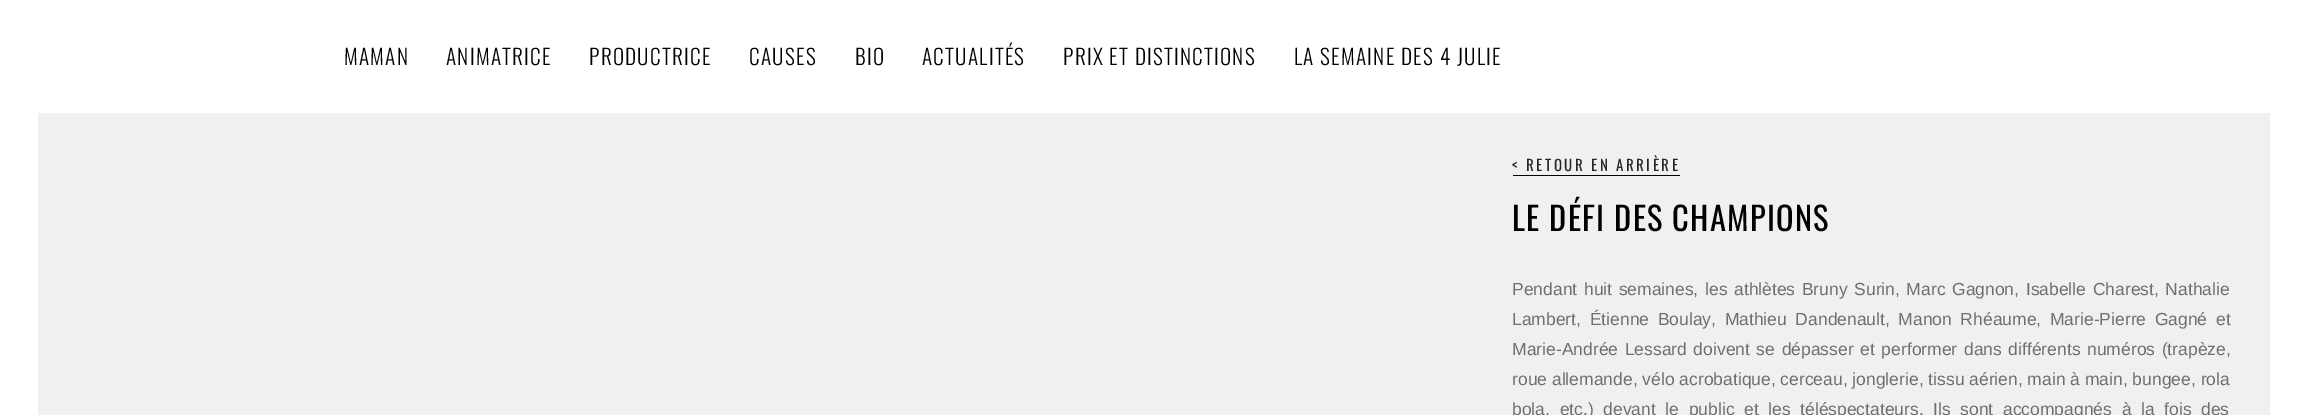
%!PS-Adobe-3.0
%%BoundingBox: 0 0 2307 415
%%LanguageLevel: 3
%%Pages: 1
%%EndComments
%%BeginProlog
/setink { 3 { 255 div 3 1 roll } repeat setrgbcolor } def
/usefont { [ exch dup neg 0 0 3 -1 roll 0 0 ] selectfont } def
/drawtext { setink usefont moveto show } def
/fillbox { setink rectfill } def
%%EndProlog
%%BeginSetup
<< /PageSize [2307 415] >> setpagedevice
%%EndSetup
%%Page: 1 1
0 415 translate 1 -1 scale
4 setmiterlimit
0 0 2307 415 255 255 255 fillbox
/Oswald-Light 21.25 usefont
0 0 0 setink
344 65 moveto 1.25 0 (MAMAN) ashow
446 65 moveto 1.25 0 (ANIMATRICE) ashow
589 65 moveto 1.25 0 (PRODUCTRICE) ashow
749 65 moveto 1.25 0 (CAUSES) ashow
855 65 moveto 1.25 0 (BIO) ashow
922 65 moveto 1.25 0 (ACTUALITÉS) ashow
1063 65 moveto 1.25 0 (PRIX ET DISTINCTIONS) ashow
1294 65 moveto 1.25 0 (LA SEMAINE DES 4 JULIE) ashow
38 113 2232 302 240 240 240 fillbox
/Oswald-Regular 15 usefont
39 39 39 setink
1512 171 moveto 2.5 0 (< RETOUR EN ARRIÈRE) ashow
1513 175 167 1 0 0 0 fillbox
/Oswald-Regular 32.5 usefont
1512 231 moveto 1.25 0 (LE DÉFI DES CHAMPIONS) ashow
/LiberationSans-Regular 17.5 usefont
111 111 111 setink
1512 295 moveto 1.75 0 32 (Pendant huit semaines, les athlètes Bruny Surin, Marc Gagnon, Isabelle Charest, Nathalie) widthshow
1512 325 moveto 3.75 0 32 (Lambert, Étienne Boulay, Mathieu Dandenault, Manon Rhéaume, Marie-Pierre Gagné et) widthshow
1512 355 moveto 1.75 0 32 (Marie-Andrée Lessard doivent se dépasser et performer dans différents numéros \(trapèze,) widthshow
(roue allemande, vélo acrobatique, cerceau, jonglerie, tissu aérien, main à main, bungee, rola) 1512 385 /LiberationSans-Regular 17.5 111 111 111 drawtext
1512 415 moveto 4.75 0 32 (bola, etc.\) devant le public et les téléspectateurs. Ils sont accompagnés à la fois des) widthshow
showpage
%%EOF
